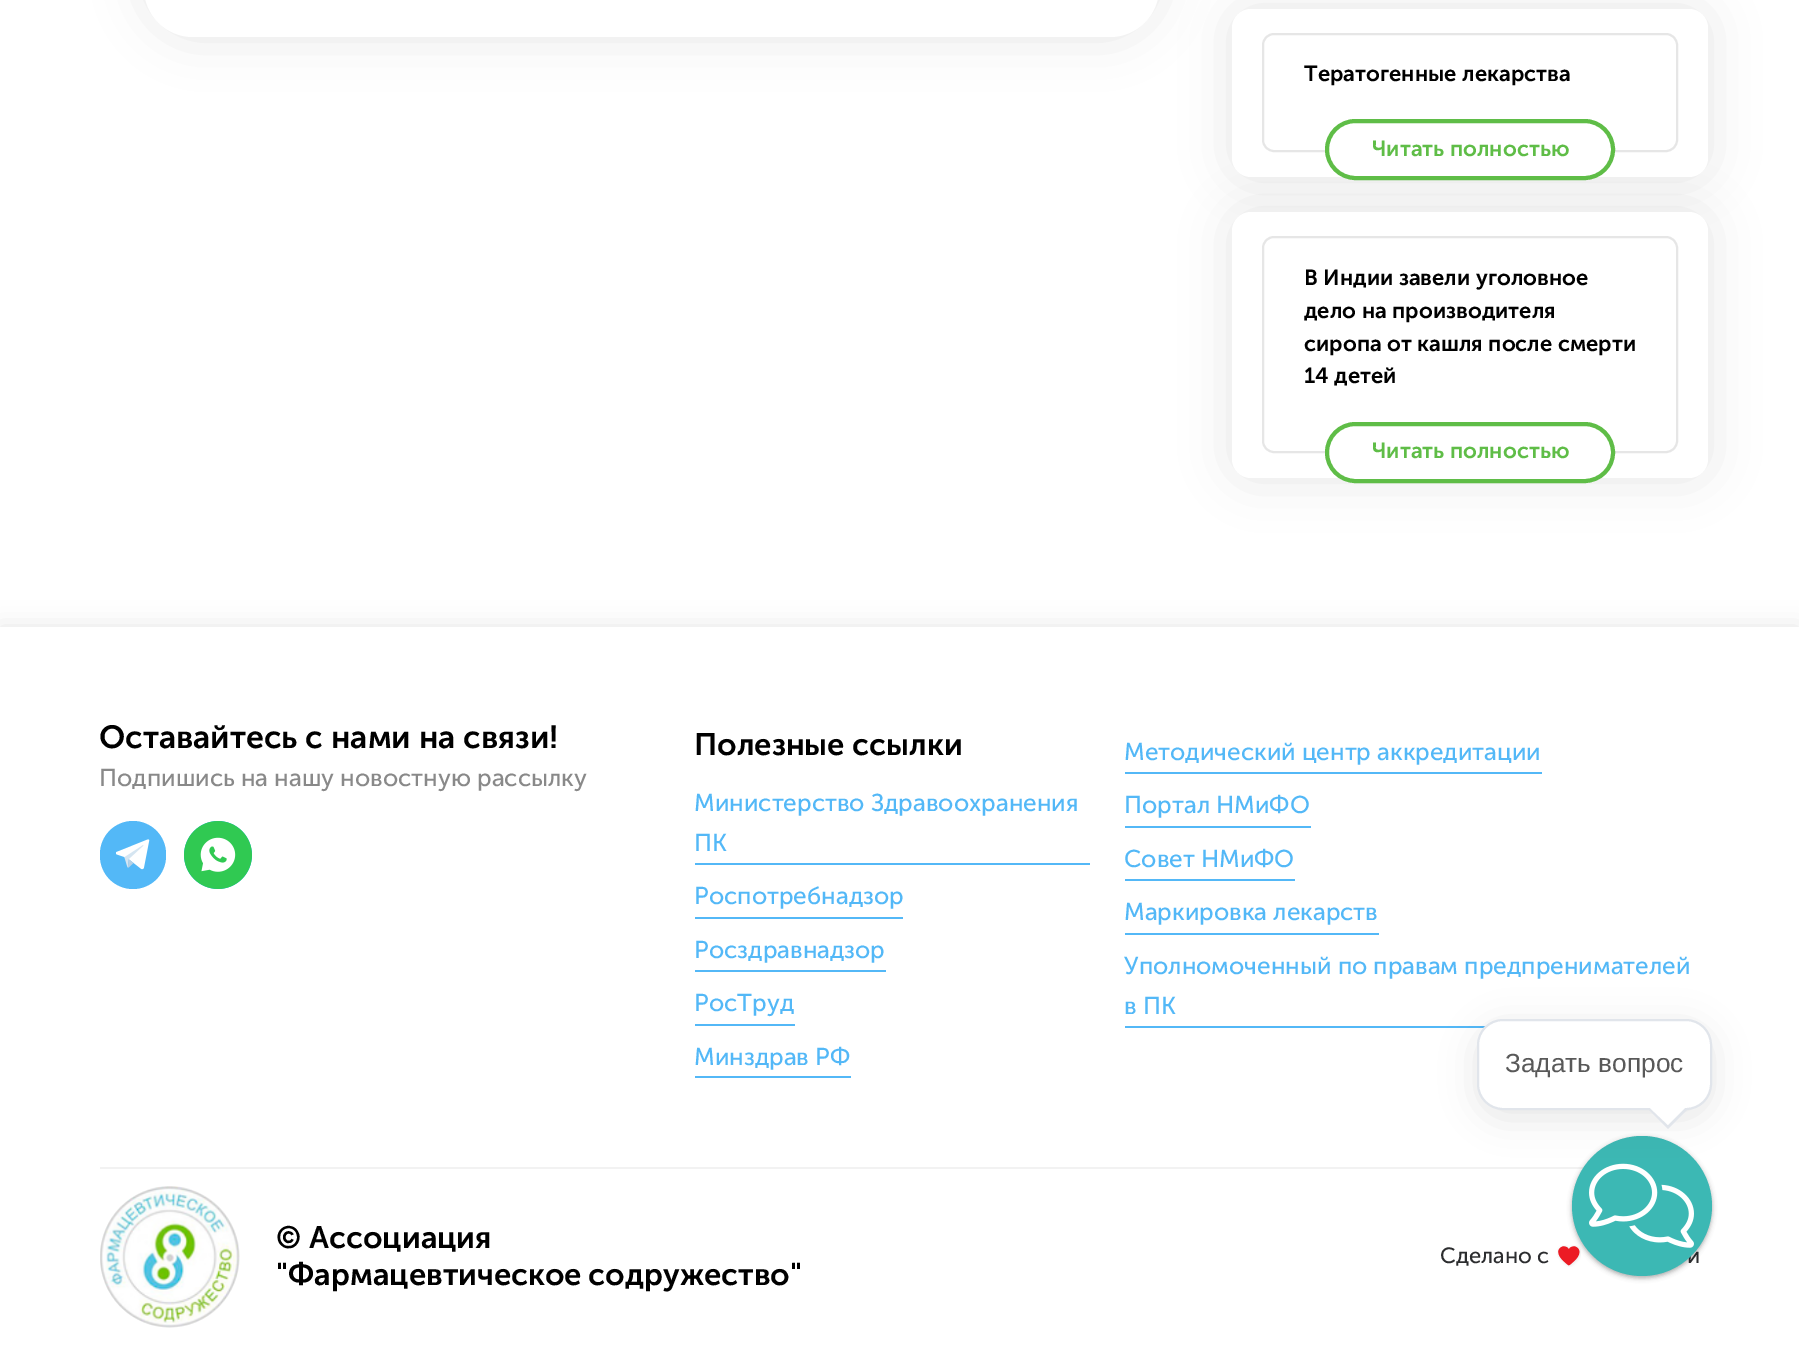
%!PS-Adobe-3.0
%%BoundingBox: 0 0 1799 1345
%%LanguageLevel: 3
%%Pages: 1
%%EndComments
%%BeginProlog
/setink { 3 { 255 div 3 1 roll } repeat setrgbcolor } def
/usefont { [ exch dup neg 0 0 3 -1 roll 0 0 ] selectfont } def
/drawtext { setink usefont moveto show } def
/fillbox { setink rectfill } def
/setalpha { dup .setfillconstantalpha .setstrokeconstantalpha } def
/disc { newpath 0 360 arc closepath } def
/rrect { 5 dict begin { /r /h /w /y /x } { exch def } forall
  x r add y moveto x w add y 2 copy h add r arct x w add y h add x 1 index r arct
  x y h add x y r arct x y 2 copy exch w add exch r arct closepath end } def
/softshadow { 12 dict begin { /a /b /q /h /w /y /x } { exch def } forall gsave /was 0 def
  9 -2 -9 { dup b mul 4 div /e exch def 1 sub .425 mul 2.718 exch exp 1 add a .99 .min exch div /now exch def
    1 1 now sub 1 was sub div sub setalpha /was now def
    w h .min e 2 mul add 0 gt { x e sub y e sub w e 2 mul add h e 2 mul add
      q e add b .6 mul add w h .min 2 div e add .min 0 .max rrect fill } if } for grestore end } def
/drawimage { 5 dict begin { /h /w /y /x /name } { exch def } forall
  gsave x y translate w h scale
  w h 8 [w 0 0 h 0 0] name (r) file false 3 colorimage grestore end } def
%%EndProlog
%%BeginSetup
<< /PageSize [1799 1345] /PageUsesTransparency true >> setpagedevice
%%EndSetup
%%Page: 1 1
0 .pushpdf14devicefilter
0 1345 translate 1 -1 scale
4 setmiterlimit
0 0 1799 1345 255 255 255 fillbox
0 0 0 setink
144 -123 1015 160 49 24.5 0.1 softshadow
255 255 255 setink
144 -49 1015 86 49 rrect fill
0 0 0 setink
1232 9 476 168 19 24.5 0.1 softshadow
1232 212 476 266 19 24.5 0.1 softshadow
255 255 255 setink
1232 9 476 168 19 rrect fill
230 230 230 setink
2 setlinewidth
1263 34 414 117 11 rrect stroke
(Тератогенные лекарства) 1304 81 /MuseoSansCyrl-SemiBold 21.9 0 0 0 drawtext
255 255 255 setink
1327 121 286 57 28.5 rrect gsave fill grestore
95 189 71 setink
4 setlinewidth
stroke
(Читать полностью) 1372 156 /MuseoSansCyrl-SemiBold 21.9 95 189 71 drawtext
255 255 255 setink
1232 212 476 266 19 rrect fill
230 230 230 setink
2 setlinewidth
1263 237 414 215 11 rrect stroke
(В Индии завели уголовное) 1304 285 /MuseoSansCyrl-SemiBold 21.9 0 0 0 drawtext
(дело на производителя) 1304 318 /MuseoSansCyrl-SemiBold 21.9 0 0 0 drawtext
(сиропа от кашля после смерти) 1304 351 /MuseoSansCyrl-SemiBold 21.9 0 0 0 drawtext
(14 детей) 1304 383 /MuseoSansCyrl-SemiBold 21.9 0 0 0 drawtext
255 255 255 setink
1327 424 286 57 28.5 rrect gsave fill grestore
95 189 71 setink
4 setlinewidth
stroke
(Читать полностью) 1372 458 /MuseoSansCyrl-SemiBold 21.9 95 189 71 drawtext
0 0 0 setink
0 627 1799 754 0 12 0.1 softshadow
0 627 1799 718 255 255 255 fillbox
(Оставайтесь с нами на связи!) 99 748 /MuseoSansCyrl-SemiBold 32 0 0 0 drawtext
(Подпишись на нашу новостную рассылку) 99 786 /MuseoSansCyrl-Regular 24.3 137 137 137 drawtext
83 184 247 setink
100 821 66 68 33 rrect fill
(assets/img1.rgb) 116 839 34 31 drawimage
(assets/img2.rgb) 184 821 68 68 drawimage
(Полезные ссылки) 694 755 /MuseoSansCyrl-SemiBold 30.9 0 0 0 drawtext
(Министерство Здравоохранения) 694 811 /MuseoSansCyrl-Regular 24.3 83 184 247 drawtext
(ПК) 694 851 /MuseoSansCyrl-Regular 24.3 83 184 247 drawtext
695 863 395 2 83 184 247 fillbox
(Роспотребнадзор) 694 904 /MuseoSansCyrl-Regular 24.3 83 184 247 drawtext
695 917 208 2 83 184 247 fillbox
(Росздравнадзор) 694 958 /MuseoSansCyrl-Regular 24.3 83 184 247 drawtext
695 970 191 2 83 184 247 fillbox
(РосТруд) 694 1011 /MuseoSansCyrl-Regular 24.3 83 184 247 drawtext
695 1024 100 2 83 184 247 fillbox
(Минздрав РФ) 694 1065 /MuseoSansCyrl-Regular 24.3 83 184 247 drawtext
695 1076 156 2 83 184 247 fillbox
(Методический центр аккредитации) 1124 760 /MuseoSansCyrl-Regular 24.3 83 184 247 drawtext
1125 772 417 2 83 184 247 fillbox
(Портал НМиФО) 1124 813 /MuseoSansCyrl-Regular 24.3 83 184 247 drawtext
1125 826 186 2 83 184 247 fillbox
(Совет НМиФО) 1124 867 /MuseoSansCyrl-Regular 24.3 83 184 247 drawtext
1125 879 170 2 83 184 247 fillbox
(Маркировка лекарств) 1124 920 /MuseoSansCyrl-Regular 24.3 83 184 247 drawtext
1125 933 254 2 83 184 247 fillbox
(Уполномоченный по правам предпренимателей) 1124 974 /MuseoSansCyrl-Regular 24.3 83 184 247 drawtext
(в ПК) 1124 1014 /MuseoSansCyrl-Regular 24.3 83 184 247 drawtext
1125 1026 361 2 83 184 247 fillbox
100 1167 1484 2 242 242 242 fillbox
(assets/img3.rgb) 100 1186 140 142 drawimage
(© Ассоциация) 276 1248 /MuseoSansCyrl-SemiBold 30.9 0 0 0 drawtext
276 1285 moveto -1 0 32 ("Фармацевтическое содружество") widthshow
(Сделано с) 1440 1263 /MuseoSansCyrl-Regular 22 44 45 47 drawtext
(assets/img4.rgb) 1557 1245 24 22 drawimage
(и) 1687 1263 /MuseoSansCyrl-Regular 22 44 45 47 drawtext
0 0 0 setink
1572 1138 140 140 70 2.5 0.33 softshadow
60 184 180 setink
1642 1206 70 disc fill
(assets/img5.rgb) 1589 1163 105 85 drawimage
0 0 0 setink
1477 1027 235 91 26 17.5 0.1 softshadow
255 255 255 setink
1478 1020 233 89 25 rrect gsave fill grestore
225 229 235 setink
2 setlinewidth
stroke
(Задать вопрос) 1505 1072 /LiberationSans-Regular 26.25 89 89 89 drawtext
225 229 235 setink
1647 1108 moveto 1689 1108 lineto 1668 1129 lineto closepath fill
255 255 255 setink
1650 1108 moveto 1685 1108 lineto 1668 1125 lineto closepath fill
.poppdf14devicefilter showpage
%%EOF
